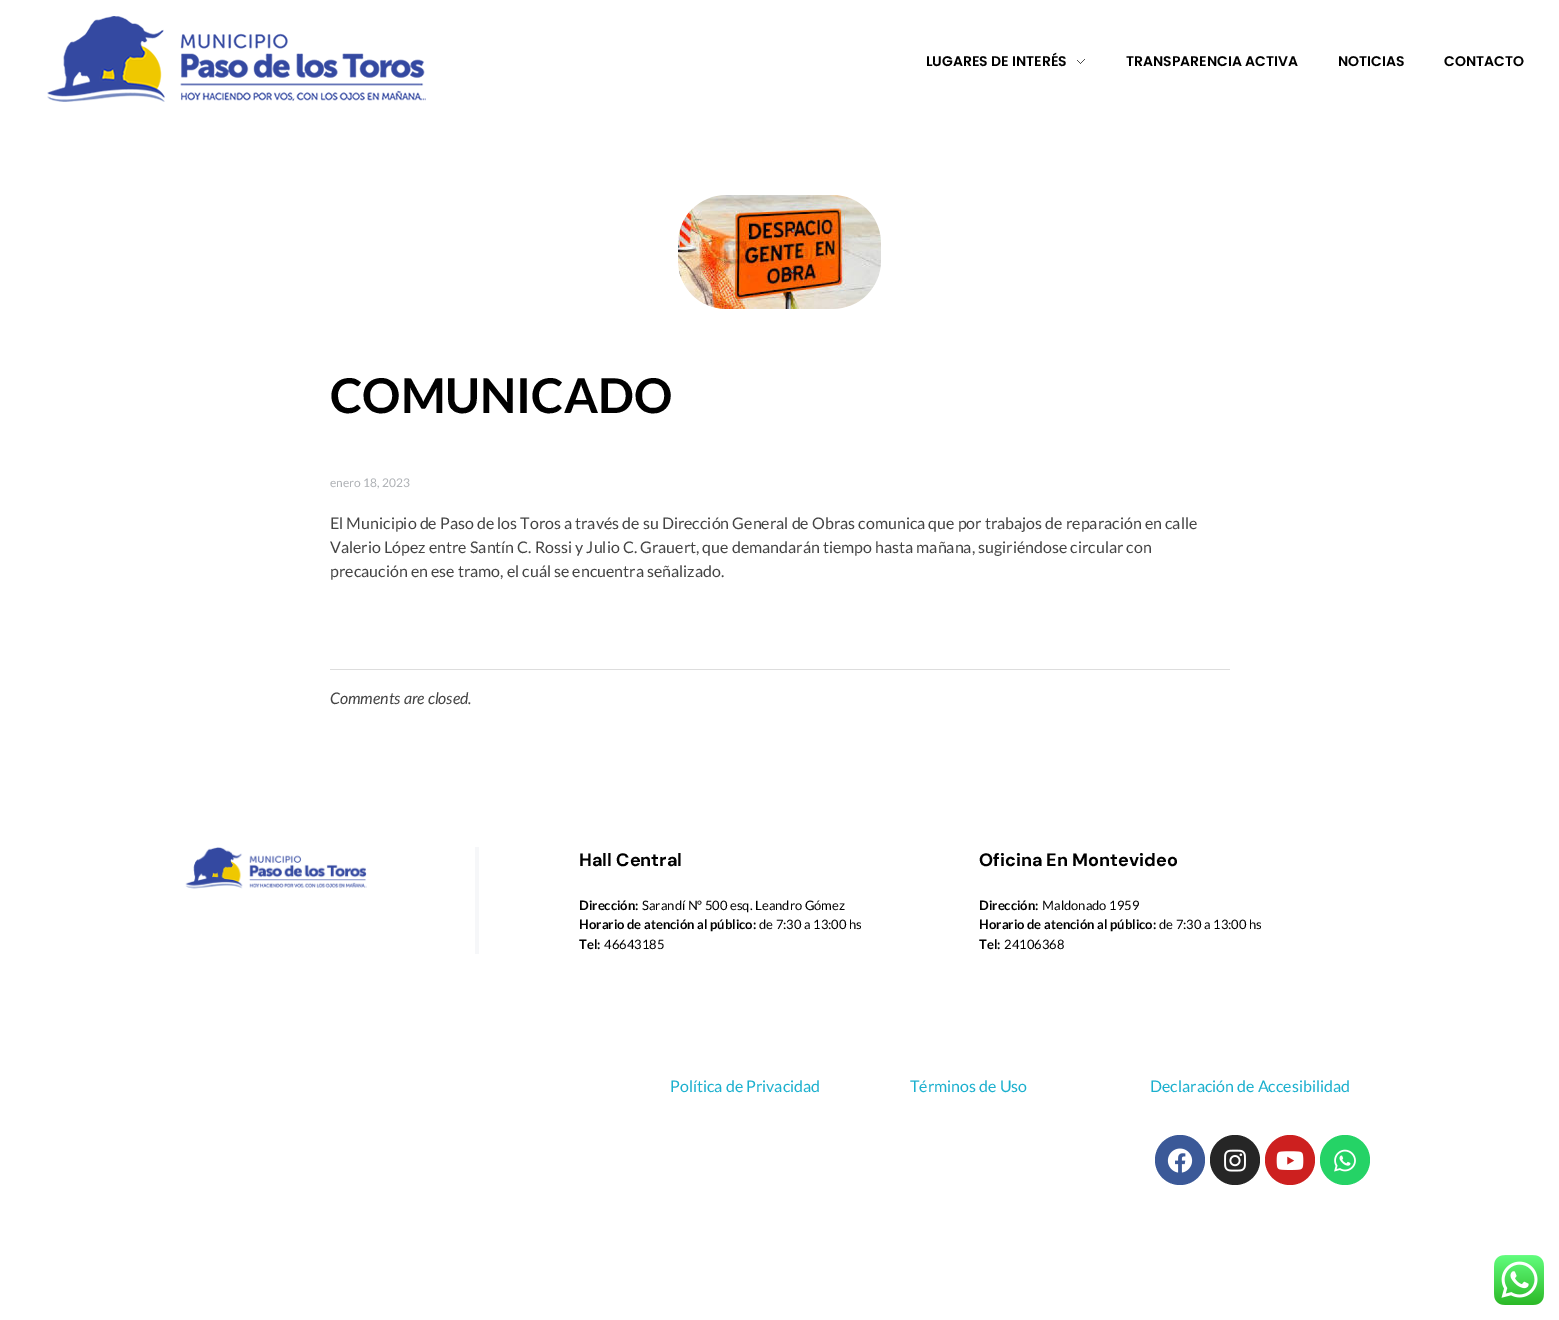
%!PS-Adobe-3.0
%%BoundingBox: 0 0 1559 1320
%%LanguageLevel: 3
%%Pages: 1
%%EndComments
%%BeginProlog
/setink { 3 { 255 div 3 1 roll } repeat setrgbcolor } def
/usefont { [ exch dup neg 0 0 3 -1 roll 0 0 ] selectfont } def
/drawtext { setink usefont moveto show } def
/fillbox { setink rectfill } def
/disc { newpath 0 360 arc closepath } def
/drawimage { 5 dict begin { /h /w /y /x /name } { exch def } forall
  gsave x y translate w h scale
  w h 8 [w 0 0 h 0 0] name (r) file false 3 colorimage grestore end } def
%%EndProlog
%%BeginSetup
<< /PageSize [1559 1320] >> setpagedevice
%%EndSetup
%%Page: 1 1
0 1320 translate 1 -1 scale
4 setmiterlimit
0 0 1559 1320 255 255 255 fillbox
(assets/img1.rgb) 47 16 379 86 drawimage
(LUGARES DE INTERÉS) 926 66 /Poppins-SemiBold 14 0 0 0 drawtext
(assets/img2.rgb) 1077 59 8 5 drawimage
(TRANSPARENCIA ACTIVA) 1126 66 /Poppins-SemiBold 14 0 0 0 drawtext
(NOTICIAS) 1338 66 /Poppins-SemiBold 14 0 0 0 drawtext
(CONTACTO) 1444 66 /Poppins-SemiBold 14 0 0 0 drawtext
(assets/img3.rgb) 678 195 203 114 drawimage
(COMUNICADO) 330 413 /Lato-Bold 48 0 0 0 drawtext
(enero 18, 2023) 330 487 /Lato-Regular 12 175 178 182 drawtext
(El Municipio de Paso de los Toros a través de su Dirección General de Obras comunica que por trabajos de reparación en calle) 330 529 /Lato-Regular 16 68 68 68 drawtext
(Valerio López entre Santín C. Rossi y Julio C. Grauert, que demandarán tiempo hasta mañana, sugiriéndose circular con) 330 553 /Lato-Regular 16 68 68 68 drawtext
(precaución en ese tramo, el cuál se encuentra señalizado.) 330 577 /Lato-Regular 16 68 68 68 drawtext
330 669 900 1 221 221 221 fillbox
(Comments are closed.) 330 704 /Lato-Italic 16 68 68 68 drawtext
475 847 4 107 246 247 249 fillbox
(assets/img4.rgb) 185 847 182 42 drawimage
(Hall Central) 579 866 /DMSans-Bold 18 0 0 0 drawtext
(Dirección:) 579 910 /Lato-Bold 13 0 0 0 drawtext
(Sarandí Nº 500 esq. Leandro Gómez) 642 910 /Lato-Regular 13 0 0 0 drawtext
(Horario de atención al público:) 579 929 /Lato-Bold 13 0 0 0 drawtext
(de 7:30 a 13:00 hs) 759 929 /Lato-Regular 13 0 0 0 drawtext
(Tel:) 579 949 /Lato-Bold 13 0 0 0 drawtext
(46643185) 604 949 /Lato-Regular 13 0 0 0 drawtext
(Oficina En Montevideo) 979 866 /DMSans-Bold 18 0 0 0 drawtext
(Dirección:) 979 910 /Lato-Bold 13 0 0 0 drawtext
(Maldonado 1959) 1042 910 /Lato-Regular 13 0 0 0 drawtext
(Horario de atención al público:) 979 929 /Lato-Bold 13 0 0 0 drawtext
(de 7:30 a 13:00 hs) 1159 929 /Lato-Regular 13 0 0 0 drawtext
(Tel:) 979 949 /Lato-Bold 13 0 0 0 drawtext
(24106368) 1004 949 /Lato-Regular 13 0 0 0 drawtext
(Política de Privacidad) 670 1092 /Lato-Regular 16 27 176 206 drawtext
(Términos de Uso) 910 1092 /Lato-Regular 16 27 176 206 drawtext
(Declaración de Accesibilidad) 1150 1092 /Lato-Regular 16 27 176 206 drawtext
59 89 152 setink
1180 1160 25 disc fill
(assets/img5.rgb) 1167 1148 26 25 drawimage
38 38 38 setink
1235 1160 25 disc fill
(assets/img6.rgb) 1224 1149 22 23 drawimage
205 32 31 setink
1290 1160 25 disc fill
(assets/img7.rgb) 1276 1151 28 19 drawimage
37 211 102 setink
1345 1160 25 disc fill
(assets/img8.rgb) 1334 1149 22 23 drawimage
(assets/img9.rgb) 1494 1255 50 50 drawimage
showpage
%%EOF
